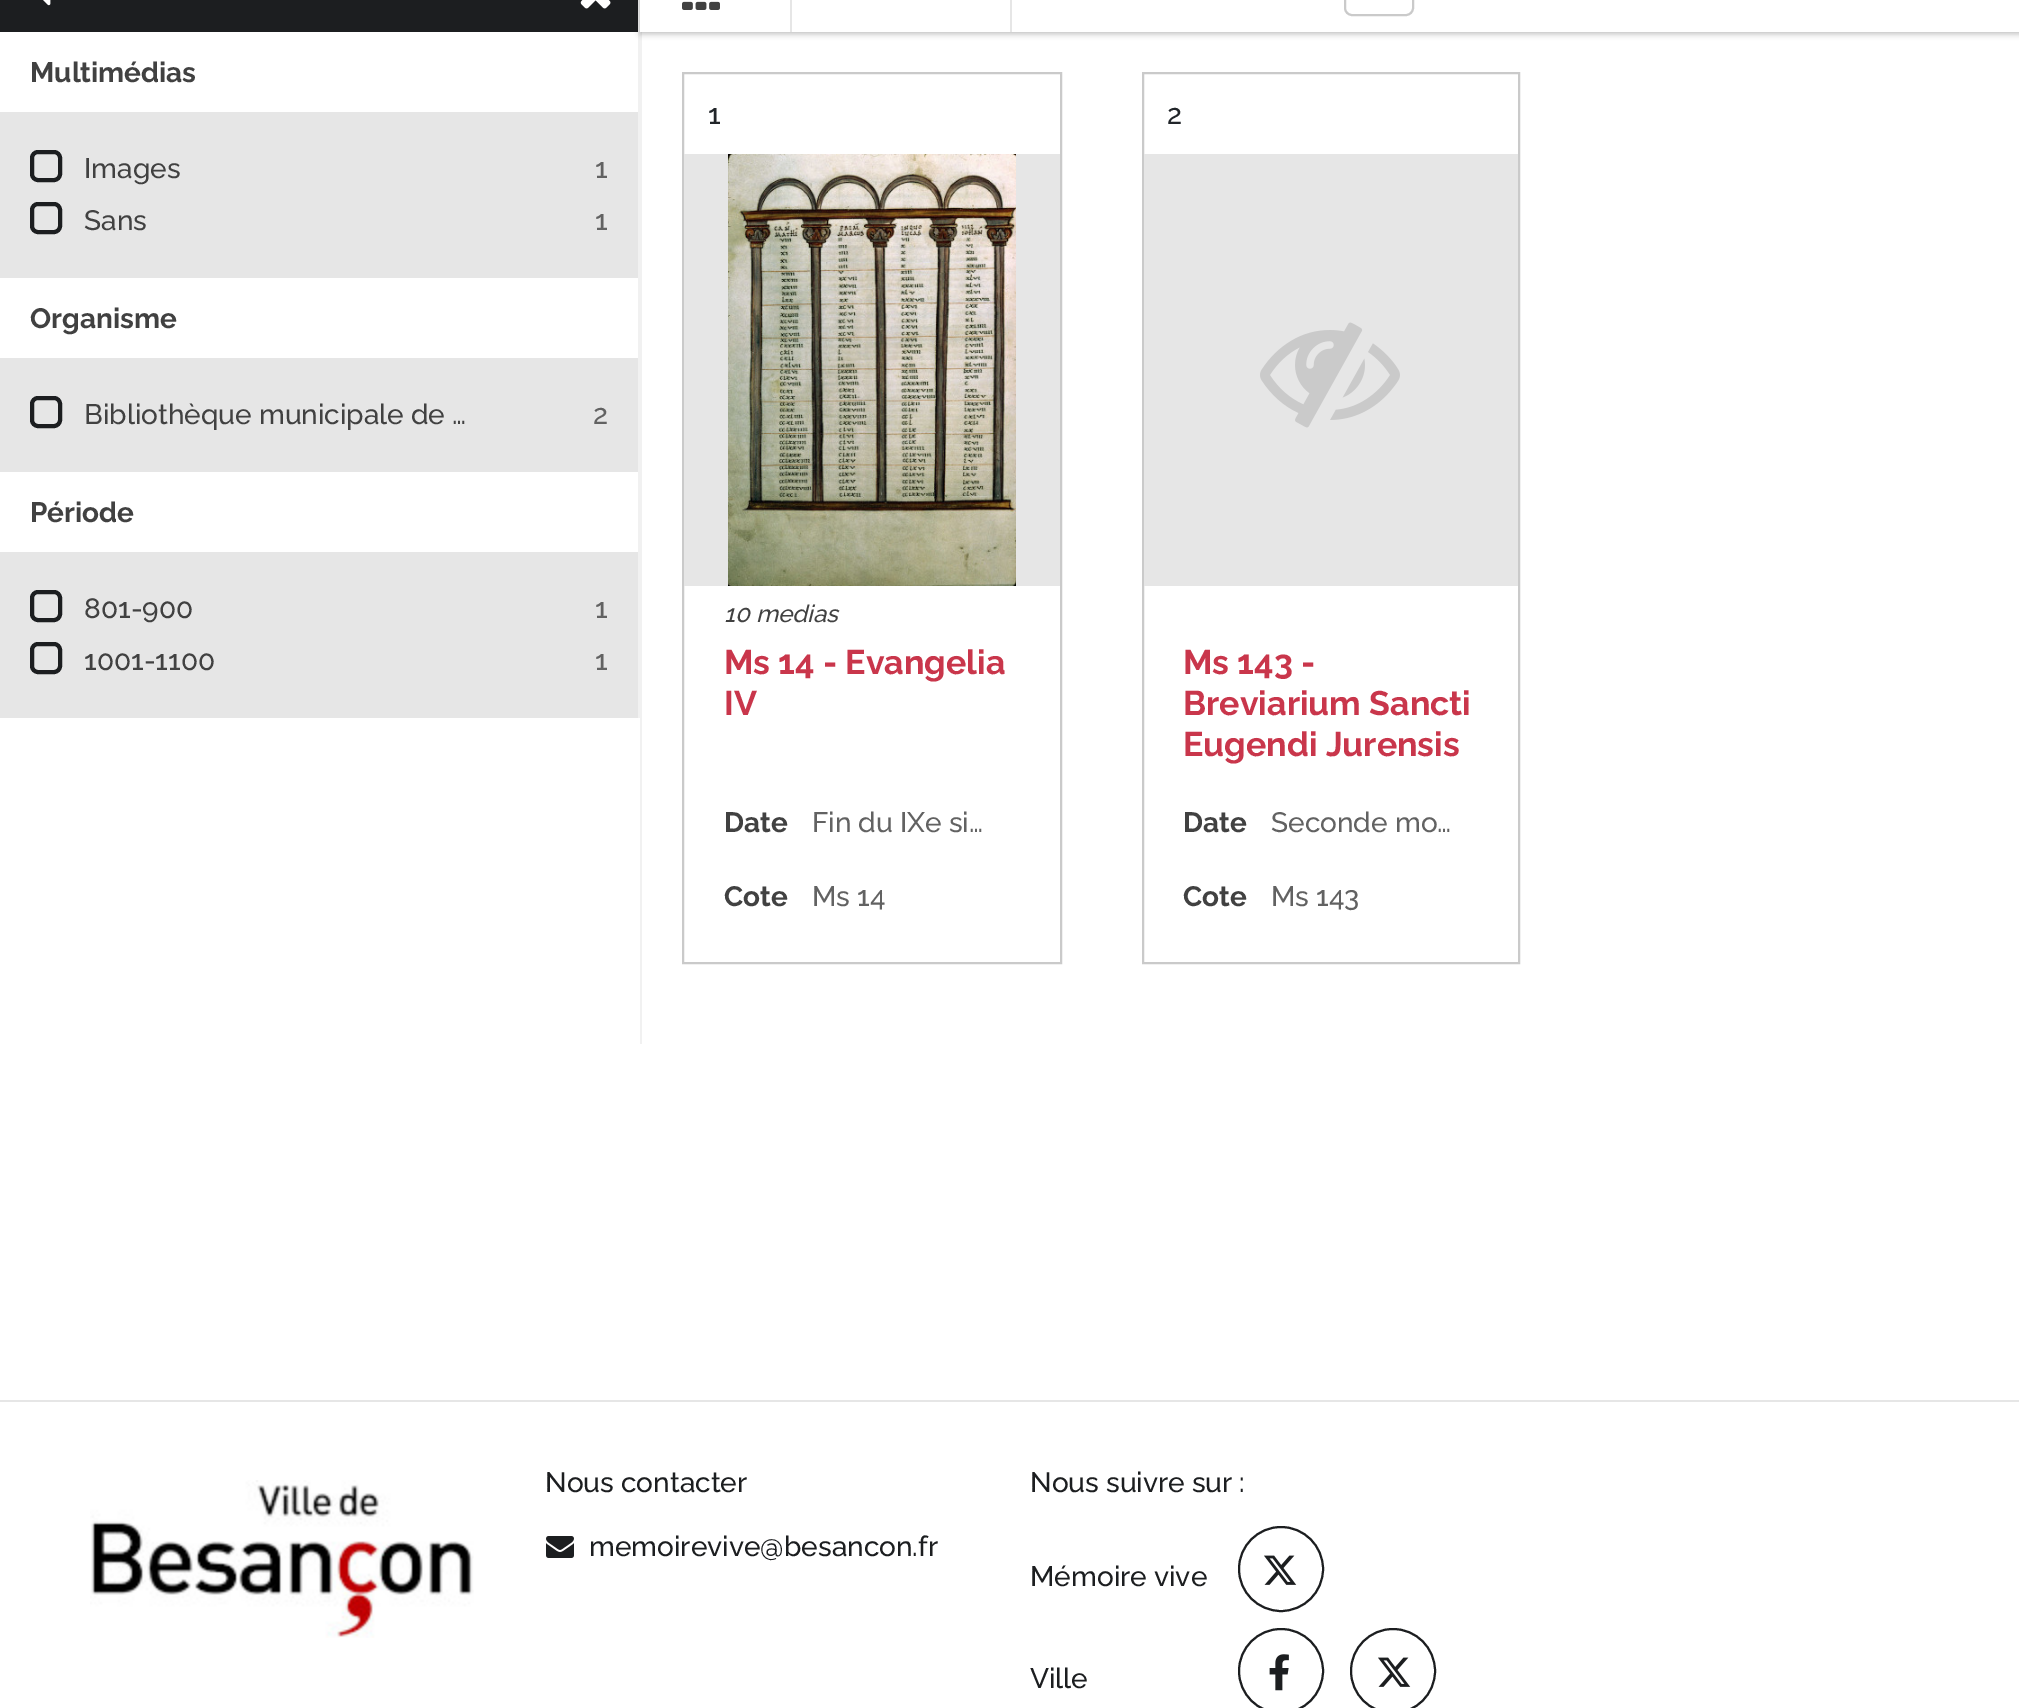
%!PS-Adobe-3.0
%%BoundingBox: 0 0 2019 1708
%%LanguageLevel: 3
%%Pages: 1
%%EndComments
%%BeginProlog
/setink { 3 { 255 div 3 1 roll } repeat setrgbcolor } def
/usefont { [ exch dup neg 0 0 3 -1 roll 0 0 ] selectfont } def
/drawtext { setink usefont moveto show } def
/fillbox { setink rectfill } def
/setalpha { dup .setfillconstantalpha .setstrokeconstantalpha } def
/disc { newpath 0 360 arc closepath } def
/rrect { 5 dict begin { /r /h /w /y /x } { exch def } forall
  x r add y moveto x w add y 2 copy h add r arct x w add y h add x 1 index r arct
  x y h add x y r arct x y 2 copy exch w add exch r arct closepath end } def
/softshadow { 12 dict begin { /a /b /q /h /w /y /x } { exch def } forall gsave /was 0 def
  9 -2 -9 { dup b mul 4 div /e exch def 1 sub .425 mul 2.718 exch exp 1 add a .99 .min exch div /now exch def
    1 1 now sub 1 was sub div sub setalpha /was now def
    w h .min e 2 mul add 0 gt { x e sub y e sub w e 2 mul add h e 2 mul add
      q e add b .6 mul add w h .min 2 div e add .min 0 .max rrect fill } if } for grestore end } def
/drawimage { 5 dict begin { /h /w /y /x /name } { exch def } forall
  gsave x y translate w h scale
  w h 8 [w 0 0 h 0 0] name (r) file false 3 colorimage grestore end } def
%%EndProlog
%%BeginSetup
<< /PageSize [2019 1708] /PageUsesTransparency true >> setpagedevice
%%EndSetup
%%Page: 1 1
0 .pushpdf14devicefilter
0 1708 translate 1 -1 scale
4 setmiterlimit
0 0 2019 1708 255 255 255 fillbox
638 0 2 718 241 241 241 fillbox
0 0 638 32 28 30 32 fillbox
640 32 2 1012 241 241 241 fillbox
gsave
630 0 moveto 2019 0 lineto 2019 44 lineto 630 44 lineto closepath 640 -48 moveto 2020 -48 lineto 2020 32 lineto 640 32 lineto closepath eoclip newpath
0 0 0 setink
640 -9 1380 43 0 3 0.25 softshadow
grestore
790 0 2 32 230 230 230 fillbox
(assets/img1.rgb) 682 1 38 9 drawimage
1010 0 2 32 230 230 230 fillbox
202 202 202 setink
2 setlinewidth
1345 -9 68 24 7 rrect stroke
0 112 638 606 230 230 230 fillbox
(assets/img2.rgb) 43 0 8 6 drawimage
(assets/img3.rgb) 580 0 31 9 drawimage
(Multimédias) 30 82 /Raleway-Bold 28 65 65 65 drawtext
28 30 32 setink
4 setlinewidth
32 152 28 28 6 rrect stroke
(Images) 84 178 /Raleway-Medium 28 65 65 65 drawtext
(1) 595 178 /Raleway-Medium 28 98 98 98 drawtext
28 30 32 setink
32 204 28 28 6 rrect stroke
(Sans) 84 230 /Raleway-Medium 28 65 65 65 drawtext
(1) 595 230 /Raleway-Medium 28 98 98 98 drawtext
0 278 638 80 255 255 255 fillbox
(Organisme) 30 328 /Raleway-Bold 28 65 65 65 drawtext
28 30 32 setink
32 398 28 28 6 rrect stroke
(Bibliothèque municipale de …) 84 424 /Raleway-Medium 28 65 65 65 drawtext
(2) 593 424 /Raleway-Medium 28 98 98 98 drawtext
0 472 638 80 255 255 255 fillbox
(Période) 30 522 /Raleway-Bold 28 65 65 65 drawtext
28 30 32 setink
32 592 28 28 6 rrect stroke
(801-900) 84 618 /Raleway-Medium 28 65 65 65 drawtext
(1) 595 618 /Raleway-Medium 28 98 98 98 drawtext
28 30 32 setink
32 644 28 28 6 rrect stroke
(1001-1100) 84 670 /Raleway-Medium 28 65 65 65 drawtext
(1) 595 670 /Raleway-Medium 28 98 98 98 drawtext
202 202 202 setink
2 setlinewidth
683 73 378 890 rectstroke
(1) 708 124 /Raleway-Medium 28 33 37 41 drawtext
684 154 376 432 230 230 230 fillbox
(assets/img4.rgb) 728 154 288 432 drawimage
(10 medias) 724 622 /Raleway-MediumItalic 24 65 65 65 drawtext
(Ms 14 - Evangelia) 724 674 /Raleway-Bold 34 201 54 75 drawtext
(IV) 724 715 /Raleway-Bold 34 201 54 75 drawtext
(Date) 724 832 /Raleway-Bold 28 65 65 65 drawtext
(Fin du IXe si…) 812 832 /Raleway-Medium 28 98 98 98 drawtext
(Cote) 724 906 /Raleway-Bold 28 65 65 65 drawtext
(Ms 14) 812 906 /Raleway-Medium 28 98 98 98 drawtext
202 202 202 setink
1143 73 376 890 rectstroke
(2) 1167 124 /Raleway-Medium 28 33 37 41 drawtext
1144 154 374 432 230 230 230 fillbox
(assets/img5.rgb) 1260 322 140 106 drawimage
(Ms 143 -) 1183 674 /Raleway-Bold 34 201 54 75 drawtext
(Breviarium Sancti) 1183 715 /Raleway-Bold 34 201 54 75 drawtext
(Eugendi Jurensis) 1183 756 /Raleway-Bold 34 201 54 75 drawtext
(Date) 1183 832 /Raleway-Bold 28 65 65 65 drawtext
(Seconde mo…) 1271 832 /Raleway-Medium 28 98 98 98 drawtext
(Cote) 1183 906 /Raleway-Bold 28 65 65 65 drawtext
(Ms 143) 1271 906 /Raleway-Medium 28 98 98 98 drawtext
0 1400 2019 2 230 230 230 fillbox
(assets/img6.rgb) 90 1480 384 158 drawimage
(Nous contacter) 545 1492 /Raleway-Medium 28 28 30 32 drawtext
(assets/img7.rgb) 546 1536 28 22 drawimage
(memoirevive@besancon.fr) 589 1556 /Raleway-Medium 28 28 30 32 drawtext
(Nous suivre sur :) 1030 1492 /Raleway-Medium 28 28 30 32 drawtext
(Mémoire vive) 1030 1586 /Raleway-Medium 28 28 30 32 drawtext
1281 1569 42 disc stroke
(assets/img8.rgb) 1264 1555 33 30 drawimage
(Ville) 1030 1688 /Raleway-Medium 28 28 30 32 drawtext
1281 1671 42 disc stroke
(assets/img9.rgb) 1269 1654 20 37 drawimage
1393 1671 42 disc stroke
(assets/img8.rgb) 1378 1657 33 30 drawimage
.poppdf14devicefilter showpage
%%EOF
